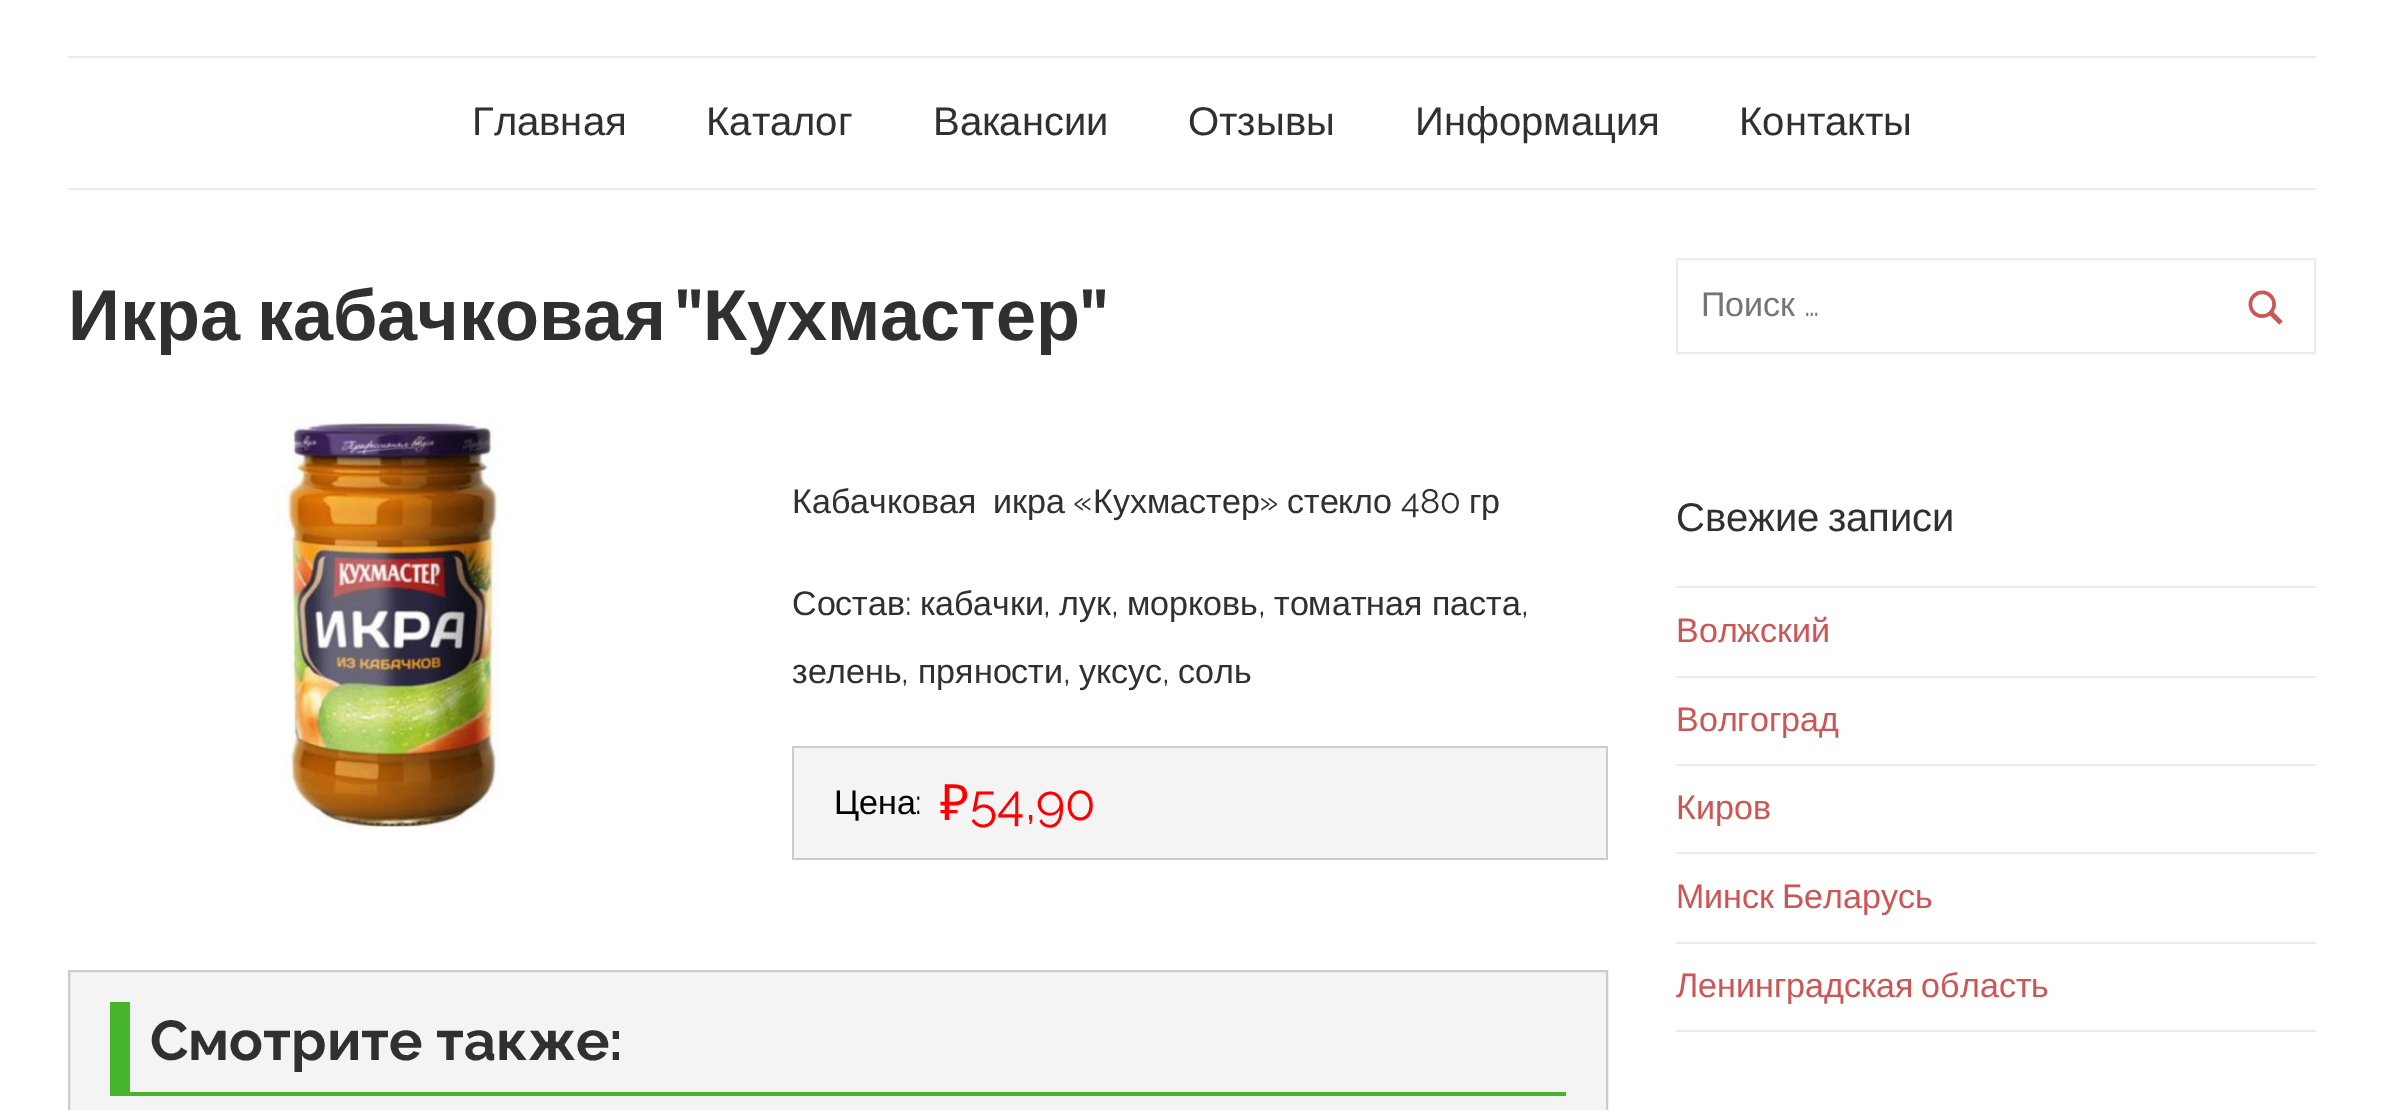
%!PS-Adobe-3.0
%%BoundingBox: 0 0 2383 1110
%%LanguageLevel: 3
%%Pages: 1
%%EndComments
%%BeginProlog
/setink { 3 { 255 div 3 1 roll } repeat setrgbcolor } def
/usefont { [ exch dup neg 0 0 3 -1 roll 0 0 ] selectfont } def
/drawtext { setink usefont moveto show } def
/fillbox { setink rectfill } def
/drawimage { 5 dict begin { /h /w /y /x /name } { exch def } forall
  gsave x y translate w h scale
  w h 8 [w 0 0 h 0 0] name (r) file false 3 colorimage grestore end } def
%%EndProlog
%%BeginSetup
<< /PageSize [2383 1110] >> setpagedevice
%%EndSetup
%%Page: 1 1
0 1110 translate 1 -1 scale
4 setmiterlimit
0 0 2383 1110 255 255 255 fillbox
68 188 2248 2 236 236 236 fillbox
68 56 2248 2 236 236 236 fillbox
(Главная) 472 135 /LiberationSans-Regular 40 48 48 48 drawtext
(Каталог) 706 135 /LiberationSans-Regular 40 48 48 48 drawtext
(Вакансии) 933 135 /LiberationSans-Regular 40 48 48 48 drawtext
(Отзывы) 1188 135 /LiberationSans-Regular 40 48 48 48 drawtext
(Информация) 1415 135 /LiberationSans-Regular 40 48 48 48 drawtext
(Контакты) 1739 135 /LiberationSans-Regular 40 48 48 48 drawtext
/LiberationSans-Bold 72 usefont
68 340 moveto -3 0 32 (Икра кабачковая) widthshow
(") 675 340 /Rambla-Bold 72 48 48 48 drawtext
(Кухмастер) 703 340 /LiberationSans-Bold 72 48 48 48 drawtext
(") 1080 340 /Rambla-Bold 72 48 48 48 drawtext
(assets/img1.rgb) 275 418 226 414 drawimage
792 746 816 2 204 204 204 fillbox
(Кабачковая) 792 513 /LiberationSans-Regular 34 48 48 48 drawtext
(икра) 993 513 /LiberationSans-Regular 34 48 48 48 drawtext
(«) 1073 513 /Raleway-Regular 34 48 48 48 drawtext
(Кухмастер) 1093 513 /LiberationSans-Regular 34 48 48 48 drawtext
(») 1259 513 /Raleway-Regular 34 48 48 48 drawtext
(стекло) 1287 513 /LiberationSans-Regular 34 48 48 48 drawtext
(480) 1401 513 /Raleway-Regular 34 48 48 48 drawtext
(гр) 1469 513 /LiberationSans-Regular 34 48 48 48 drawtext
(Состав) 792 615 /LiberationSans-Regular 34 48 48 48 drawtext
(:) 905 615 /Raleway-Regular 34 48 48 48 drawtext
(кабачки) 920 615 /LiberationSans-Regular 34 48 48 48 drawtext
(,) 1043 615 /Raleway-Regular 34 48 48 48 drawtext
(лук) 1059 615 /LiberationSans-Regular 34 48 48 48 drawtext
(,) 1111 615 /Raleway-Regular 34 48 48 48 drawtext
(морковь) 1127 615 /LiberationSans-Regular 34 48 48 48 drawtext
(,) 1258 615 /Raleway-Regular 34 48 48 48 drawtext
(томатная паста) 1274 615 /LiberationSans-Regular 34 48 48 48 drawtext
(,) 1521 615 /Raleway-Regular 34 48 48 48 drawtext
(зелень) 792 683 /LiberationSans-Regular 34 48 48 48 drawtext
(,) 901 683 /Raleway-Regular 34 48 48 48 drawtext
(пряности) 918 683 /LiberationSans-Regular 34 48 48 48 drawtext
(,) 1063 683 /Raleway-Regular 34 48 48 48 drawtext
(уксус) 1079 683 /LiberationSans-Regular 34 48 48 48 drawtext
(,) 1162 683 /Raleway-Regular 34 48 48 48 drawtext
(соль) 1178 683 /LiberationSans-Regular 34 48 48 48 drawtext
794 748 812 110 244 244 244 fillbox
1606 748 2 112 204 204 204 fillbox
792 858 816 2 204 204 204 fillbox
792 748 2 112 204 204 204 fillbox
(Цена) 834 814 /LiberationSans-Regular 34 0 0 0 drawtext
(:) 915 814 /Raleway-Regular 34 0 0 0 drawtext
(₽) 940 820 /NotoSans-Regular 50 253 0 2 drawtext
(54,90) 970 820 /Raleway-Regular 50 253 0 2 drawtext
244 244 244 setink
69 971 moveto 1607 971 lineto 1607 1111 lineto 69 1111 lineto closepath gsave fill grestore
204 204 204 setink
2 setlinewidth
stroke
130 1092 1436 4 71 181 44 fillbox
110 1002 20 94 71 181 44 fillbox
(Смотрите также:) 150 1060 /Raleway-Bold 56 48 48 48 drawtext
236 236 236 setink
1677 259 638 94 rectstroke
(Поиск) 1701 316 /LiberationSans-Regular 34 117 117 117 drawtext
(…) 1804 316 /Raleway-Regular 34 117 117 117 drawtext
(assets/img2.rgb) 2248 290 35 35 drawimage
/LiberationSans-Regular 40 usefont
48 48 48 setink
1676 531 moveto -3 0 32 (Свежие записи) widthshow
1676 586 640 2 236 236 236 fillbox
1676 676 640 2 236 236 236 fillbox
(Волжский) 1676 642 /LiberationSans-Regular 34 204 85 85 drawtext
1676 764 640 2 236 236 236 fillbox
(Волгоград) 1676 731 /LiberationSans-Regular 34 204 85 85 drawtext
1676 852 640 2 236 236 236 fillbox
(Киров) 1676 819 /LiberationSans-Regular 34 204 85 85 drawtext
1676 942 640 2 236 236 236 fillbox
(Минск) 1676 908 /LiberationSans-Regular 34 204 85 85 drawtext
(Беларусь) 1782 908 /LiberationSans-Regular 34 204 85 85 drawtext
1676 1030 640 2 236 236 236 fillbox
204 85 85 setink
1676 997 moveto -1 0 32 (Ленинградская область) widthshow
showpage
%%EOF
